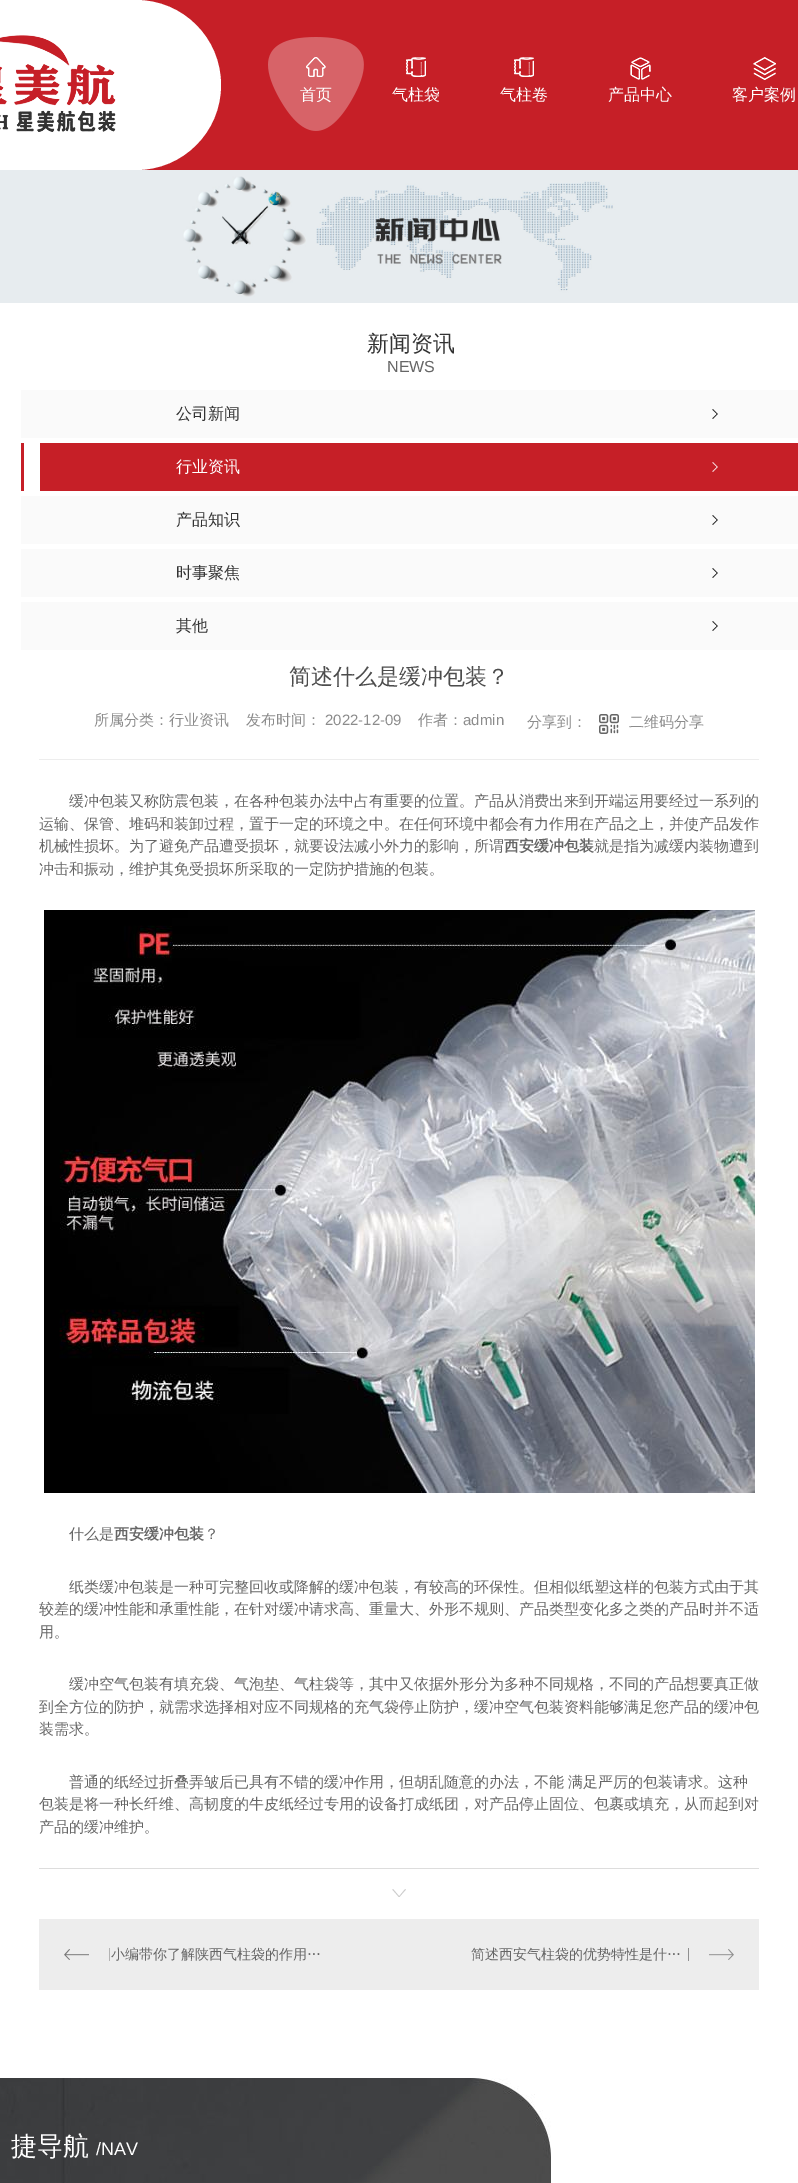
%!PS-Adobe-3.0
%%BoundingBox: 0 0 798 2183
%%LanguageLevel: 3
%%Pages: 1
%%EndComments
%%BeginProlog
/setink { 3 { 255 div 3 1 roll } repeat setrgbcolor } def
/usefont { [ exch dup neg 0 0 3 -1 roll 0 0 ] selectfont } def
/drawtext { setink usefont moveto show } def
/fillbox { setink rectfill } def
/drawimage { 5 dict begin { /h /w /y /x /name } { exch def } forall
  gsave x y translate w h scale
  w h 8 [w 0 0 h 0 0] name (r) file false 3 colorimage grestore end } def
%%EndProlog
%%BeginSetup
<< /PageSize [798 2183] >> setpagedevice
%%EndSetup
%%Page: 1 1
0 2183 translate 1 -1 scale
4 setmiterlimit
0 0 798 2183 255 255 255 fillbox
137 0 661 170 198 31 39 fillbox
255 255 255 setink
-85 0 moveto 136 0 lineto 183 0 221 38 221 85 curveto 221 132 183 170 136 170 curveto -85 170 lineto closepath fill
(assets/img1.rgb) 0 35 116 97 drawimage
(assets/img2.rgb) 306 57 20 20 drawimage
(assets/img3.rgb) 268 37 96 94 drawimage
(首页) 300 100 /WenQuanYiZenHei-Medium 16 255 255 255 drawtext
(assets/img4.rgb) 406 57 20 20 drawimage
(气柱袋) 392 100 /WenQuanYiZenHei-Medium 16 255 255 255 drawtext
(assets/img4.rgb) 514 57 20 20 drawimage
(气柱卷) 500 100 /WenQuanYiZenHei-Medium 16 255 255 255 drawtext
(assets/img5.rgb) 630 57 21 23 drawimage
(产品中心) 608 100 /WenQuanYiZenHei-Medium 16 255 255 255 drawtext
(assets/img6.rgb) 753 57 23 23 drawimage
(客户案例) 732 100 /WenQuanYiZenHei-Medium 16 255 255 255 drawtext
(assets/img7.rgb) 0 170 798 133 drawimage
(新闻资讯) 367 351 /WenQuanYiZenHei-Medium 22 51 51 51 drawtext
(NEWS) 387 372 /LiberationSans-Regular 16 102 102 102 drawtext
21 390 777 48 250 250 250 fillbox
(assets/img8.rgb) 712 409 6 10 drawimage
(公司新闻) 176 419 /WenQuanYiZenHei-Medium 16 51 51 51 drawtext
21 443 777 48 198 31 39 fillbox
24 443 16 48 255 255 255 fillbox
(assets/img9.rgb) 712 462 6 10 drawimage
(行业资讯) 176 472 /WenQuanYiZenHei-Medium 16 255 255 255 drawtext
21 496 777 48 250 250 250 fillbox
(assets/img8.rgb) 712 515 6 10 drawimage
(产品知识) 176 525 /WenQuanYiZenHei-Medium 16 51 51 51 drawtext
21 549 777 48 250 250 250 fillbox
(assets/img8.rgb) 712 568 6 10 drawimage
(时事聚焦) 176 578 /WenQuanYiZenHei-Medium 16 51 51 51 drawtext
21 602 777 48 250 250 250 fillbox
(assets/img8.rgb) 712 621 6 10 drawimage
(其他) 176 631 /WenQuanYiZenHei-Medium 16 51 51 51 drawtext
(简述什么是缓冲包装？) 289 684 /WenQuanYiZenHei-Medium 22 76 76 76 drawtext
(所属分类：行业资讯) 94 725 /WenQuanYiZenHei-Medium 15 140 140 140 drawtext
(发布时间：) 246 725 /WenQuanYiZenHei-Medium 15 140 140 140 drawtext
(2022-12-09) 325 725 /LiberationSans-Regular 15 140 140 140 drawtext
(作者：) 418 725 /WenQuanYiZenHei-Medium 15 140 140 140 drawtext
(admin) 463 725 /LiberationSans-Regular 15 140 140 140 drawtext
(分享到：) 527 727 /WenQuanYiZenHei-Medium 15 140 140 140 drawtext
(assets/img10.rgb) 599 714 20 20 drawimage
(二维码分享) 629 727 /WenQuanYiZenHei-Medium 15 140 140 140 drawtext
39 759 720 1 237 237 237 fillbox
39 1868 720 1 221 221 221 fillbox
(缓冲包装又称防震包装，在各种包装办法中占有重要的位置。产品从消费出来到开端运用要经过一系列的) 69 806 /WenQuanYiZenHei-Medium 15 102 102 102 drawtext
(运输、保管、堆码和装卸过程，置于一定的环境之中。在任何环境中都会有力作用在产品之上，并使产品发作) 39 829 /WenQuanYiZenHei-Medium 15 102 102 102 drawtext
(机械性损坏。为了避免产品遭受损坏，就要设法减小外力的影响，所谓) 39 851 /WenQuanYiZenHei-Medium 15 102 102 102 drawtext
(西安缓冲包装) 504 851 /WenQuanYiZenHei-Bold 15 102 102 102 drawtext
(就是指为减缓内装物遭到) 594 851 /WenQuanYiZenHei-Medium 15 102 102 102 drawtext
(冲击和振动，维护其免受损坏所采取的一定防护措施的包装。) 39 874 /WenQuanYiZenHei-Medium 15 102 102 102 drawtext
(assets/img11.rgb) 44 910 711 583 drawimage
(什么是) 69 1539 /WenQuanYiZenHei-Medium 15 102 102 102 drawtext
(西安缓冲包装) 114 1539 /WenQuanYiZenHei-Bold 15 102 102 102 drawtext
(？) 204 1539 /WenQuanYiZenHei-Medium 15 102 102 102 drawtext
(纸类缓冲包装是一种可完整回收或降解的缓冲包装，有较高的环保性。但相似纸塑这样的包装方式由于其) 69 1592 /WenQuanYiZenHei-Medium 15 102 102 102 drawtext
(较差的缓冲性能和承重性能，在针对缓冲请求高、重量大、外形不规则、产品类型变化多之类的产品时并不适) 39 1614 /WenQuanYiZenHei-Medium 15 102 102 102 drawtext
(用。) 39 1637 /WenQuanYiZenHei-Medium 15 102 102 102 drawtext
(缓冲空气包装有填充袋、气泡垫、气柱袋等，其中又依据外形分为多种不同规格，不同的产品想要真正做) 69 1689 /WenQuanYiZenHei-Medium 15 102 102 102 drawtext
(到全方位的防护，就需求选择相对应不同规格的充气袋停止防护，缓冲空气包装资料能够满足您产品的缓冲包) 39 1712 /WenQuanYiZenHei-Medium 15 102 102 102 drawtext
(装需求。) 39 1734 /WenQuanYiZenHei-Medium 15 102 102 102 drawtext
(普通的纸经过折叠弄皱后已具有不错的缓冲作用，但胡乱随意的办法，不能 满足严厉的包装请求。这种) 69 1787 /WenQuanYiZenHei-Medium 15 102 102 102 drawtext
(包装是将一种长纤维、高韧度的牛皮纸经过专用的设备打成纸团，对产品停止固位、包裹或填充，从而起到对) 39 1809 /WenQuanYiZenHei-Medium 15 102 102 102 drawtext
(产品的缓冲维护。) 39 1832 /WenQuanYiZenHei-Medium 15 102 102 102 drawtext
(assets/img12.rgb) 392 1889 14 8 drawimage
39 1919 720 71 237 237 237 fillbox
(assets/img13.rgb) 64 1948 46 13 drawimage
(小编带你了解陕西气柱袋的作用…) 111 1959 /WenQuanYiZenHei-Medium 14 102 102 102 drawtext
(assets/img14.rgb) 688 1948 46 13 drawimage
(简述西安气柱袋的优势特性是什…) 471 1959 /WenQuanYiZenHei-Medium 14 102 102 102 drawtext
(assets/img15.rgb) 0 2078 551 105 drawimage
(捷导航) 11 2155 /WenQuanYiZenHei-Medium 26 255 255 255 drawtext
(/NAV) 96 2155 /LiberationSans-Regular 18 255 255 255 drawtext
showpage
%%EOF
